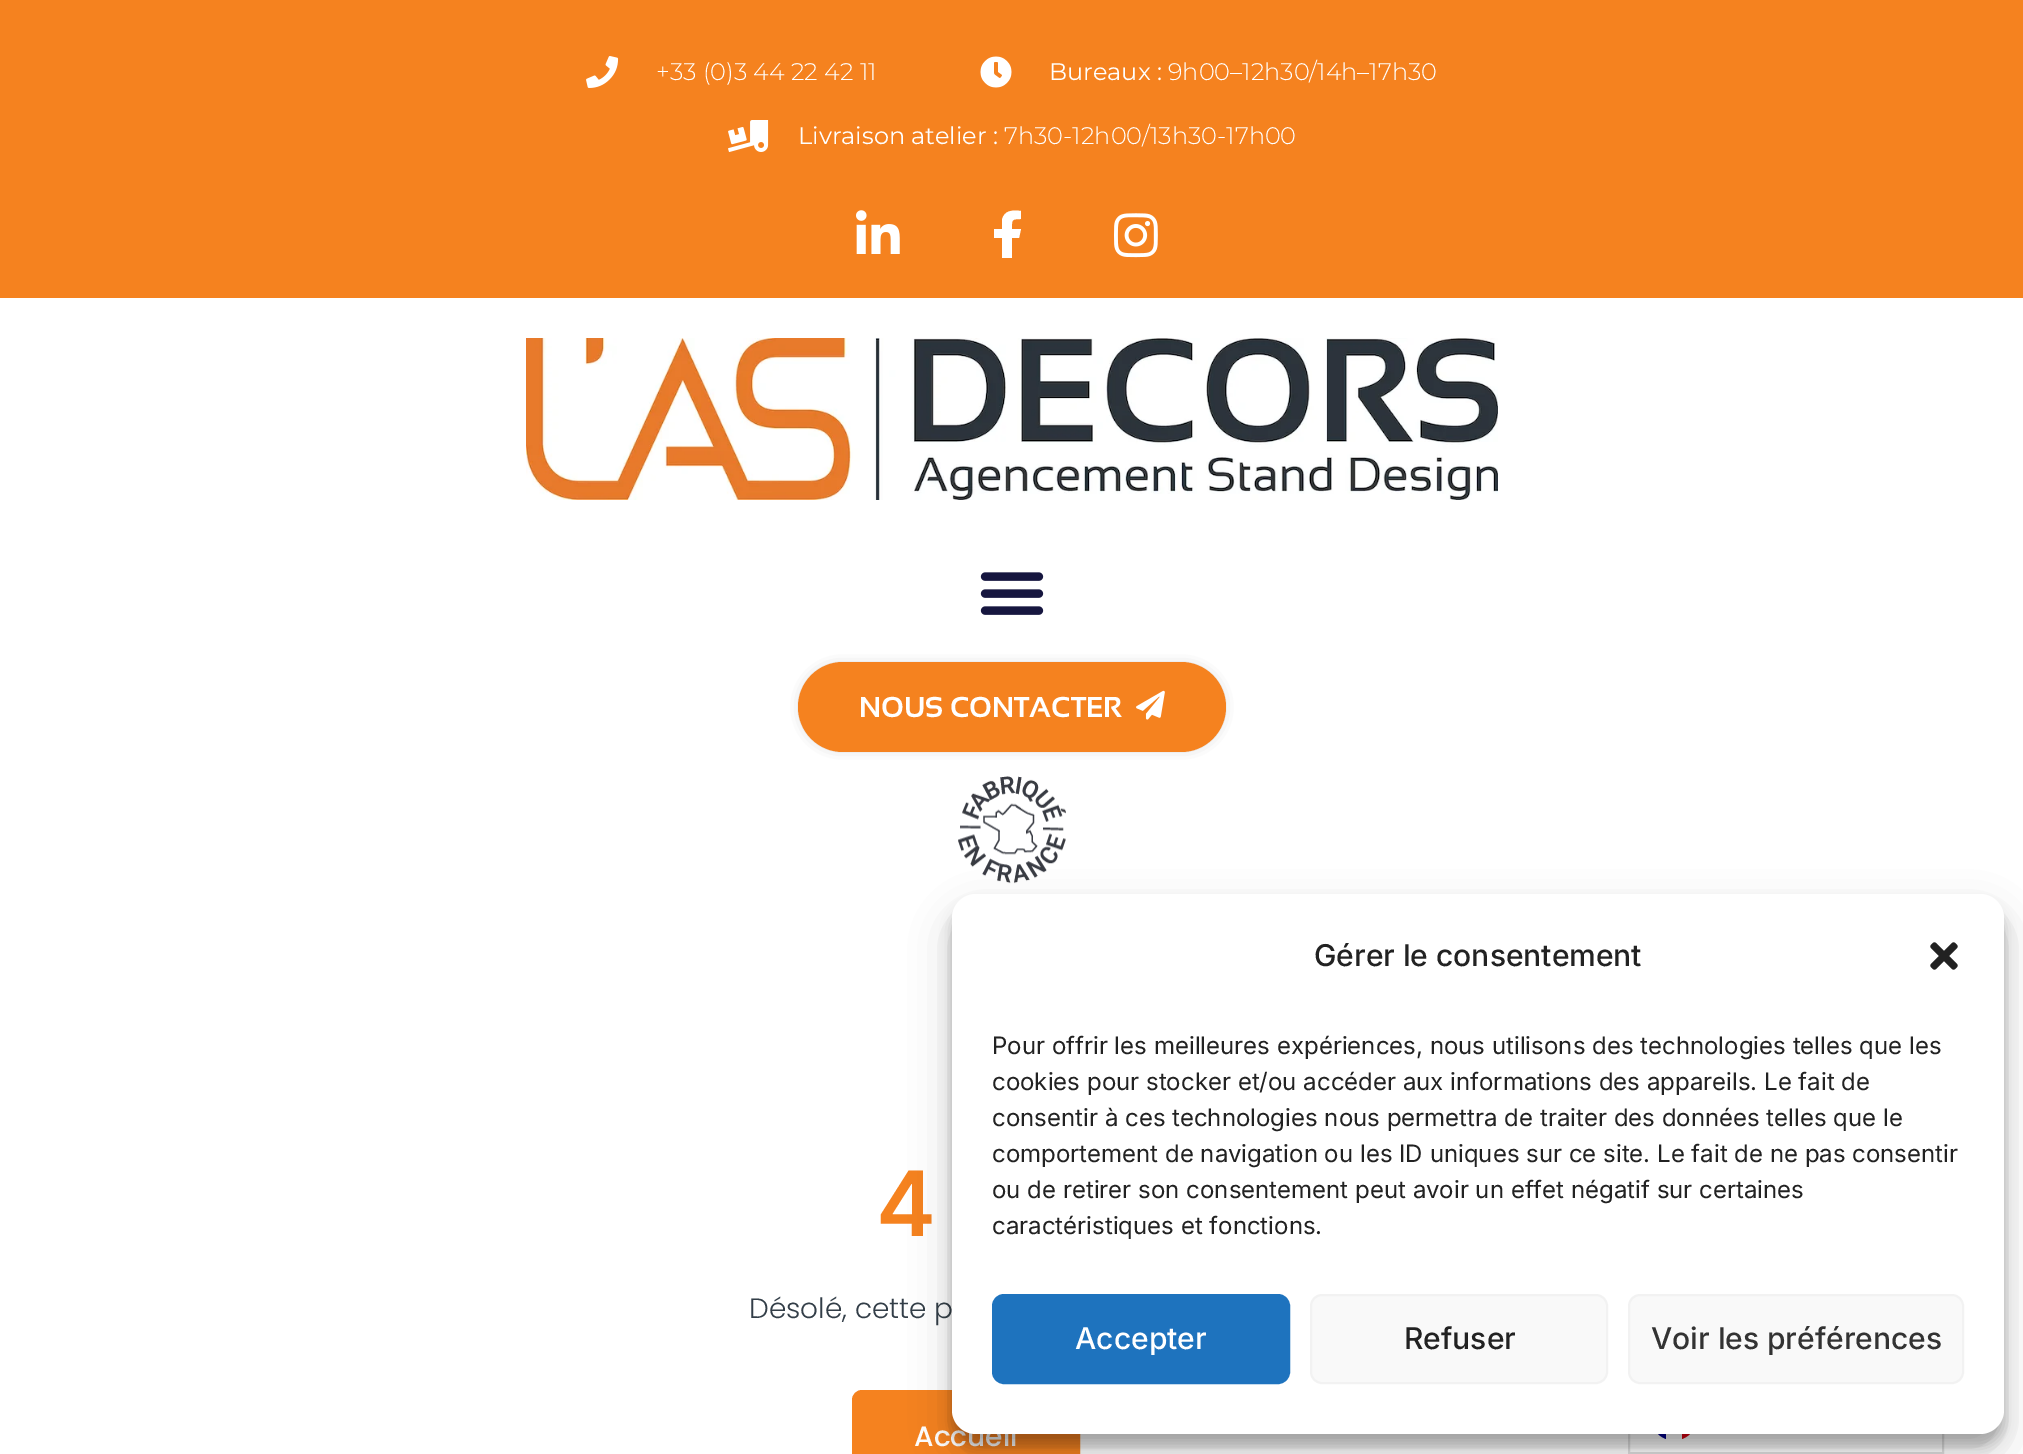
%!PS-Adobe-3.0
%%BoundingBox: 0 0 2023 1454
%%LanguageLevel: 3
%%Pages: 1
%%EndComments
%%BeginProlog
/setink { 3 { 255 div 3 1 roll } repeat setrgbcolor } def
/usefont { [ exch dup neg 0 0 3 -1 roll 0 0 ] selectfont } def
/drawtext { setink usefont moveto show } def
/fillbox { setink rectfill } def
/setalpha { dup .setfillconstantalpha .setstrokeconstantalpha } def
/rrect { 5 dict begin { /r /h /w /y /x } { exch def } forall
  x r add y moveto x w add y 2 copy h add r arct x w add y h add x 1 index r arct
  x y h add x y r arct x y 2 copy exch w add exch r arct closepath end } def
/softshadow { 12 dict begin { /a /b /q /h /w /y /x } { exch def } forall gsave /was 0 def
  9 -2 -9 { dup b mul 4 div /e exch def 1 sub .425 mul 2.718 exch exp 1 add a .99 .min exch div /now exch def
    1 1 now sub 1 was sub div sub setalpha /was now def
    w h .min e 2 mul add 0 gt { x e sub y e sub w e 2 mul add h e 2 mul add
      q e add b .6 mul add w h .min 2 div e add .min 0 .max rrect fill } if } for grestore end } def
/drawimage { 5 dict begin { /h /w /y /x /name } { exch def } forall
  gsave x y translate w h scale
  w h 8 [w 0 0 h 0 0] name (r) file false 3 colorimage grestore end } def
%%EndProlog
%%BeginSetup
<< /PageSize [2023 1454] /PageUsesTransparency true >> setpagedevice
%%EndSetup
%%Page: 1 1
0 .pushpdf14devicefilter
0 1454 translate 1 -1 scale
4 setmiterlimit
0 0 2023 1454 255 255 255 fillbox
0 0 2023 298 245 130 31 fillbox
(assets/img1.rgb) 586 56 33 32 drawimage
(+33 \(0\)3 44 22 42 11) 656 80 /Montserrat-Light 24 255 255 255 drawtext
(assets/img2.rgb) 980 56 32 32 drawimage
(Bureaux :) 1049 80 /Montserrat-Regular 24 255 255 255 drawtext
(9h00–12h30/14h–17h30) 1168 80 /Montserrat-Light 24 255 255 255 drawtext
(assets/img3.rgb) 728 120 41 32 drawimage
(Livraison atelier :) 798 144 /Montserrat-Regular 24 255 255 255 drawtext
(7h30-12h00/13h30-17h00) 1004 144 /Montserrat-Light 24 255 255 255 drawtext
(assets/img4.rgb) 856 210 44 44 drawimage
gsave
80 208 1864 50 rectclip
1019 238 moveto 1012 238 lineto 1012 260 lineto 1002 260 lineto 1002 238 lineto 994 238 lineto 994 229 lineto 1002 229 lineto 1002 220 lineto 1004 210 1013 210 1021 211 curveto 1021 219 lineto 1011 219 1012 220 1012 229 curveto 1021 229 lineto closepath fill
grestore
(assets/img5.rgb) 1114 213 44 45 drawimage
(assets/img6.rgb) 526 338 972 162 drawimage
(assets/img7.rgb) 980 572 64 43 drawimage
0 0 0 setink
806 670 412 74 37 7 0.5 softshadow
245 130 31 setink
798 662 428 90 45 rrect fill
(NOUS CONTACTER) 859 717 /Sansation-Bold 28.75 255 255 255 drawtext
(assets/img8.rgb) 1136 690 29 30 drawimage
(assets/img9.rgb) 958 776 108 108 drawimage
(4) 876 1236 /Inter-SemiBold 90 245 130 31 drawtext
(Désolé, cette p) 749 1318 /Poppins-Light 28 51 62 72 drawtext
245 130 31 setink
853 1391 226 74 9 rrect gsave fill grestore
2 setlinewidth
stroke
(Accueil) 914 1446 /Poppins-Medium 28 255 255 255 drawtext
224 224 224 setink
1629 1377 314 76 rectstroke
0 0 145 setink
1666 1439 moveto 1645 1431 1645 1401 1666 1393 curveto closepath fill
225 0 15 setink
1682 1393 moveto 1703 1401 1703 1431 1682 1439 curveto closepath fill
0 0 0 setink
952 906 1052 540 24 6 0.23 softshadow
952 914 1052 540 24 20 0.19 softshadow
255 255 255 setink
952 894 1052 540 24 rrect fill
(Gérer le consentement) 1314 966 /Inter-Medium 30 34 34 34 drawtext
(assets/img10.rgb) 1930 942 28 28 drawimage
(Pour offrir les meilleures expériences, nous utilisons des technologies telles que les) 992 1054 /Inter-Regular 24 34 34 34 drawtext
(cookies pour stocker et/ou accéder aux informations des appareils. Le fait de) 992 1090 /Inter-Regular 24 34 34 34 drawtext
(consentir à ces technologies nous permettra de traiter des données telles que le) 992 1126 /Inter-Regular 24 34 34 34 drawtext
(comportement de navigation ou les ID uniques sur ce site. Le fait de ne pas consentir) 992 1162 /Inter-Regular 24 34 34 34 drawtext
(ou de retirer son consentement peut avoir un effet négatif sur certaines) 992 1198 /Inter-Regular 24 34 34 34 drawtext
(caractéristiques et fonctions.) 992 1234 /Inter-Regular 24 34 34 34 drawtext
30 115 190 setink
993 1295 296 88 11 rrect gsave fill grestore
stroke
(Accepter) 1075 1349 /Inter-Medium 30 255 255 255 drawtext
249 249 249 setink
1311 1295 296 88 11 rrect gsave fill grestore
242 242 242 setink
stroke
(Refuser) 1404 1349 /Inter-Medium 30 34 34 34 drawtext
249 249 249 setink
1629 1295 334 88 11 rrect gsave fill grestore
242 242 242 setink
stroke
(Voir les préférences) 1651 1349 /Inter-Medium 30 51 51 51 drawtext
.poppdf14devicefilter showpage
%%EOF
